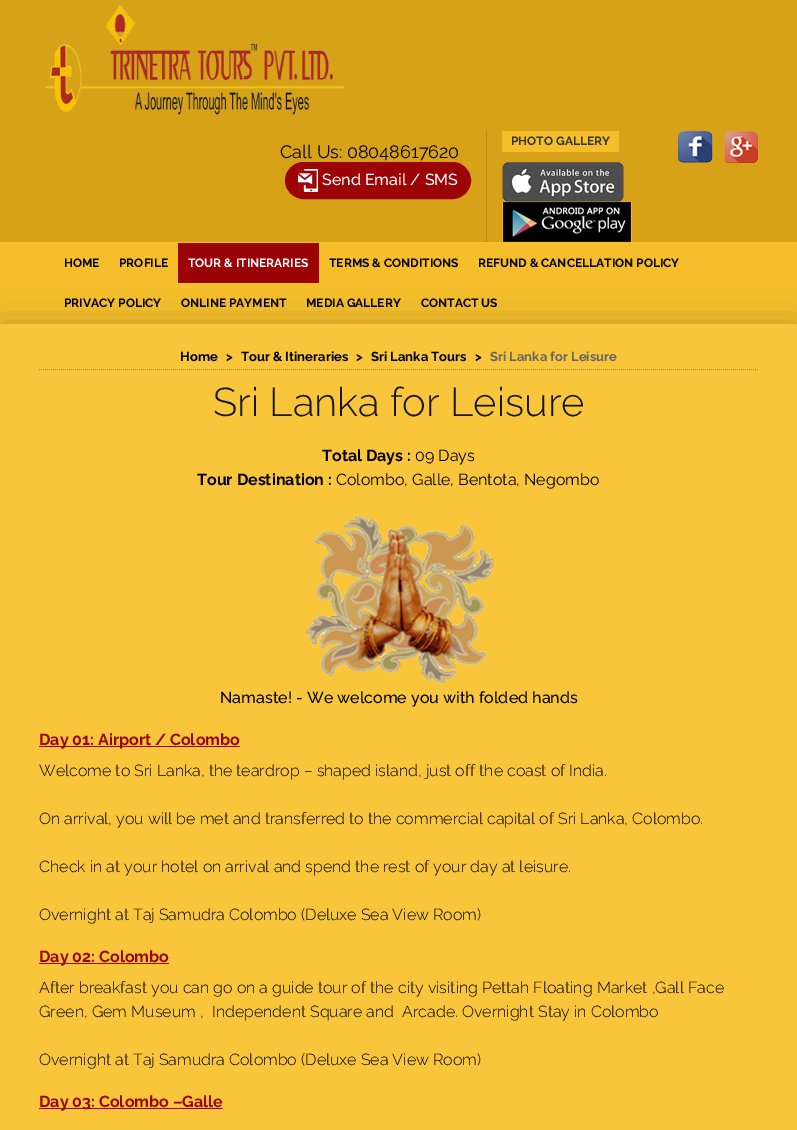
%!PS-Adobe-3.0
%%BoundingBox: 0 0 797 1130
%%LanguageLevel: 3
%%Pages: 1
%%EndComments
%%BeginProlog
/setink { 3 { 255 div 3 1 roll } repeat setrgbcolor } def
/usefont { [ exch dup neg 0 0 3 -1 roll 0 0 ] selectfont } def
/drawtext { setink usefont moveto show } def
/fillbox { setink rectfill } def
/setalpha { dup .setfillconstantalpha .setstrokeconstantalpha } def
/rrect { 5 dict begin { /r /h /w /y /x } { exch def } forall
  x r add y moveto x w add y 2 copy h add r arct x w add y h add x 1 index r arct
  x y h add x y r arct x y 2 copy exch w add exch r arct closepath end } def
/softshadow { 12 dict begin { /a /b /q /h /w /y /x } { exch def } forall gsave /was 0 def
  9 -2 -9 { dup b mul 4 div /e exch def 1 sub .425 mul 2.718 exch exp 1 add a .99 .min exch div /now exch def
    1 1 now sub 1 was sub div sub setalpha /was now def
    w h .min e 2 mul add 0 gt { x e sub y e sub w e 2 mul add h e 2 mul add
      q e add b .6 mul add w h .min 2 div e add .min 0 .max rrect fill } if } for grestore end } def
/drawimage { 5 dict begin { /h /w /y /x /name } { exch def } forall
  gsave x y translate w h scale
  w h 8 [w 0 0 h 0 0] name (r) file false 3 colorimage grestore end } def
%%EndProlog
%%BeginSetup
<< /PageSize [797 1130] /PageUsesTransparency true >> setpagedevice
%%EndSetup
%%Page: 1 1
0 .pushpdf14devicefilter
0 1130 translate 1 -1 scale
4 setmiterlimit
0 0 797 1130 246 190 43 fillbox
0 0 797 242 215 162 24 fillbox
(assets/img1.rgb) 39 5 305 116 drawimage
486 131 1 111 187 139 12 fillbox
502 131 117 21 246 190 43 fillbox
(PHOTO GALLERY) 511 145 /Raleway-Bold 12 51 51 51 drawtext
(assets/img2.rgb) 677 131 36 32 drawimage
(assets/img3.rgb) 724 131 34 32 drawimage
(assets/img4.rgb) 502 162 122 40 drawimage
(assets/img5.rgb) 502 202 130 40 drawimage
(Call Us: 08048617620) 280 158 /Raleway-Regular 18 0 0 0 drawtext
156 3 5 setink
285.5 162.5 185 36 18 rrect gsave fill grestore
stroke
(assets/img6.rgb) 298 169 20 23 drawimage
(Send Email / SMS) 322 185 /Raleway-Medium 16 255 255 255 drawtext
(HOME) 64 267 /Raleway-Bold 12 0 0 0 drawtext
(PROFILE) 119 267 /Raleway-Bold 12 0 0 0 drawtext
0 324 797 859 0 17.5 0.2 softshadow
178 243 141 40 156 3 5 fillbox
(TOUR & ITINERARIES) 188 267 /Raleway-Bold 12 255 255 255 drawtext
(TERMS & CONDITIONS) 329 267 /Raleway-Bold 12 0 0 0 drawtext
(REFUND & CANCELLATION POLICY) 478 267 /Raleway-Bold 12 0 0 0 drawtext
(PRIVACY POLICY) 64 307 /Raleway-Bold 12 0 0 0 drawtext
(ONLINE PAYMENT) 181 307 /Raleway-Bold 12 0 0 0 drawtext
(MEDIA GALLERY) 306 307 /Raleway-Bold 12 0 0 0 drawtext
(CONTACT US) 421 307 /Raleway-Bold 12 0 0 0 drawtext
0 324 797 806 249 197 59 fillbox
191 145 24 setink
[1 1] 0 setdash
39 369.5 moveto 759 369.5 lineto stroke
(Home) 180 361 /Raleway-Bold 13 0 0 0 drawtext
(>) 226 361 /Raleway-Bold 13 0 0 0 drawtext
(Tour & Itineraries) 241 361 /Raleway-Bold 13 0 0 0 drawtext
(>) 356 361 /Raleway-Bold 13 0 0 0 drawtext
(Sri Lanka Tours) 371 361 /Raleway-Bold 13 0 0 0 drawtext
(>) 475 361 /Raleway-Bold 13 0 0 0 drawtext
(Sri Lanka for Leisure) 490 361 /Raleway-Bold 13 102 102 102 drawtext
(Sri Lanka for Leisure) 213 416 /Raleway-Light 40 21 21 21 drawtext
(Total Days :) 322 461 /Raleway-Bold 16 0 0 0 drawtext
(09 Days) 415 461 /Raleway-Regular 16 0 0 0 drawtext
(Tour Destination :) 197 485 /Raleway-Bold 16 0 0 0 drawtext
(Colombo, Galle, Bentota, Negombo) 336 485 /Raleway-Regular 16 0 0 0 drawtext
(assets/img7.rgb) 305 515 189 169 drawimage
(Namaste! - We welcome you with folded hands) 220 703 /Raleway-Medium 16 0 0 0 drawtext
39 746 201 1 156 3 5 fillbox
(Day 01: Airport / Colombo) 39 745 /Raleway-Bold 16 156 3 5 drawtext
(Welcome to Sri Lanka, the teardrop – shaped island, just off the coast of India.) 39 776 /Raleway-Light 16 0 0 0 drawtext
(On arrival, you will be met and transferred to the commercial capital of Sri Lanka, Colombo.) 39 824 /Raleway-Light 16 0 0 0 drawtext
(Check in at your hotel on arrival and spend the rest of your day at leisure.) 39 872 /Raleway-Light 16 0 0 0 drawtext
(Overnight at Taj Samudra Colombo \(Deluxe Sea View Room\)) 39 920 /Raleway-Light 16 0 0 0 drawtext
39 963 130 1 156 3 5 fillbox
(Day 02: Colombo) 39 962 /Raleway-Bold 16 156 3 5 drawtext
(After breakfast you can go on a guide tour of the city visiting Pettah Floating Market ,Gall Face) 39 993 /Raleway-Light 16 0 0 0 drawtext
(Green, Gem Museum ,  Independent Square and  Arcade. Overnight Stay in Colombo) 39 1017 /Raleway-Light 16 0 0 0 drawtext
(Overnight at Taj Samudra Colombo \(Deluxe Sea View Room\)) 39 1065 /Raleway-Light 16 0 0 0 drawtext
39 1108 184 1 156 3 5 fillbox
(Day 03: Colombo –Galle) 39 1107 /Raleway-Bold 16 156 3 5 drawtext
.poppdf14devicefilter showpage
%%EOF
